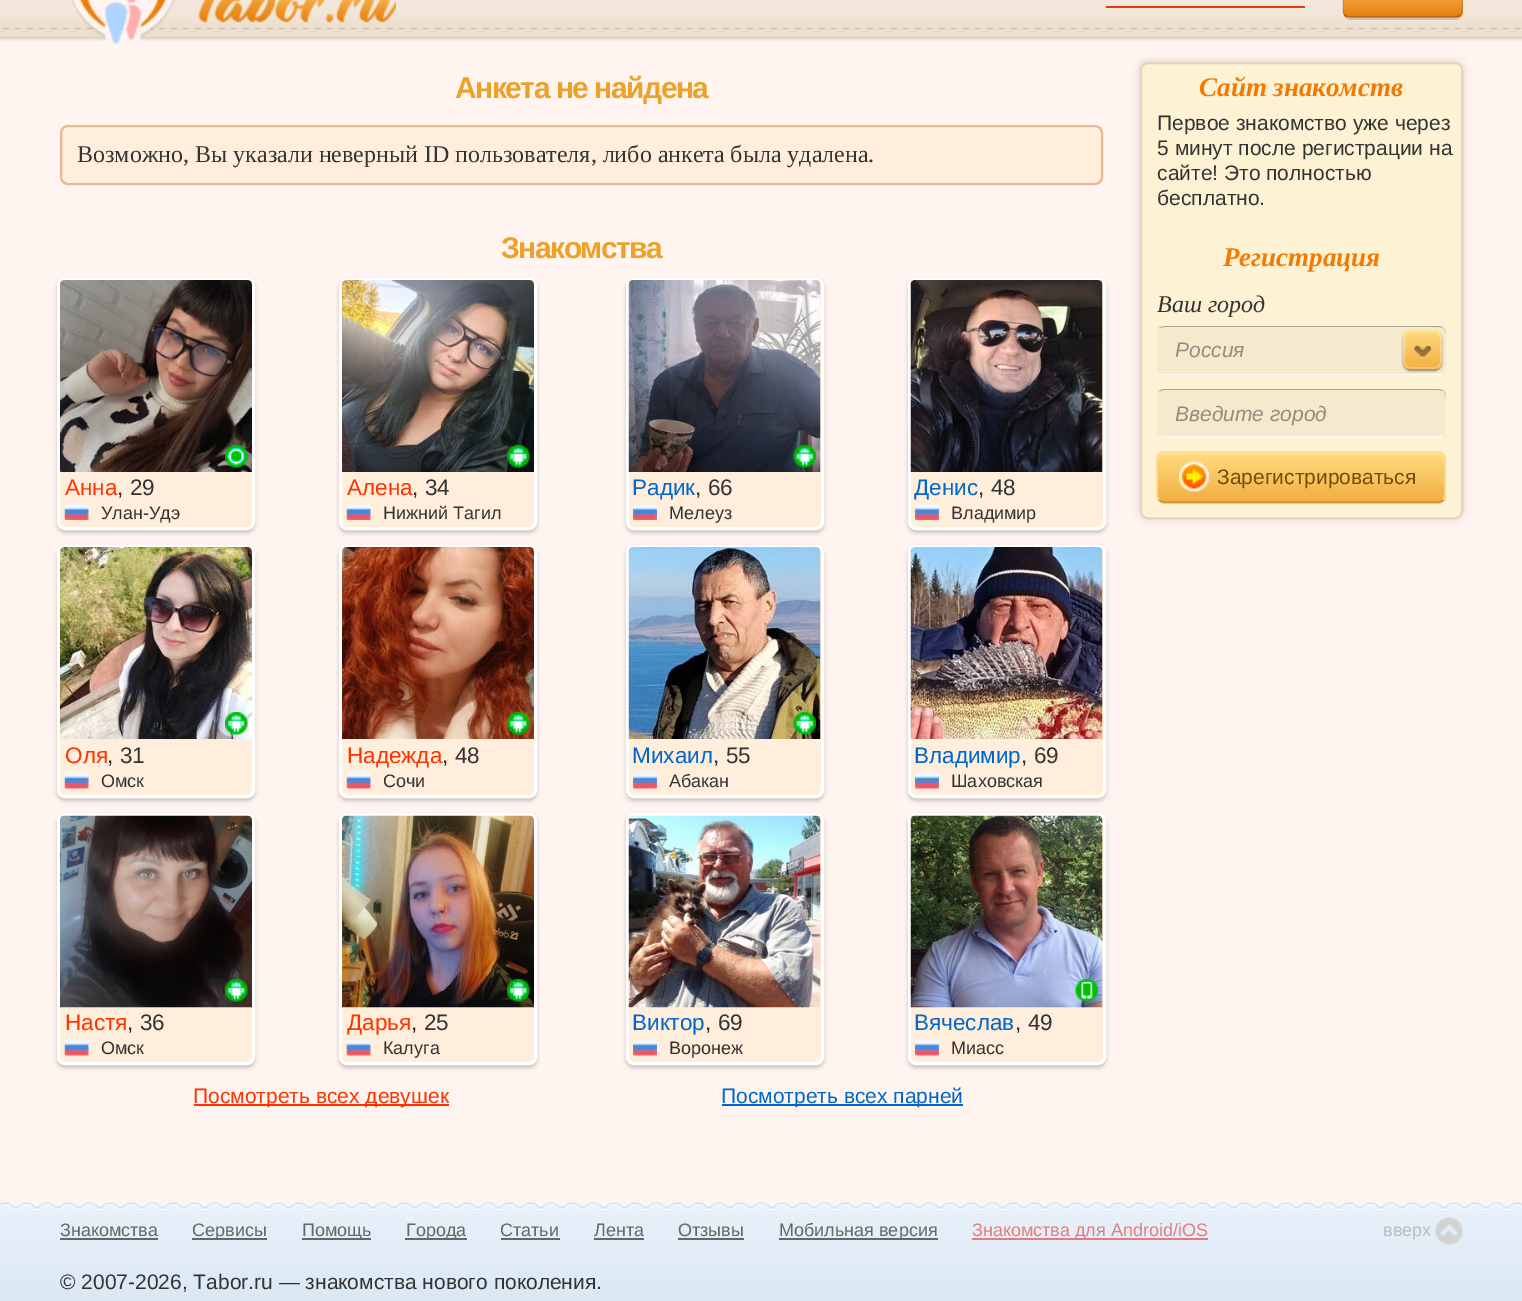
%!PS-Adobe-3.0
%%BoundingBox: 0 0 1522 1301
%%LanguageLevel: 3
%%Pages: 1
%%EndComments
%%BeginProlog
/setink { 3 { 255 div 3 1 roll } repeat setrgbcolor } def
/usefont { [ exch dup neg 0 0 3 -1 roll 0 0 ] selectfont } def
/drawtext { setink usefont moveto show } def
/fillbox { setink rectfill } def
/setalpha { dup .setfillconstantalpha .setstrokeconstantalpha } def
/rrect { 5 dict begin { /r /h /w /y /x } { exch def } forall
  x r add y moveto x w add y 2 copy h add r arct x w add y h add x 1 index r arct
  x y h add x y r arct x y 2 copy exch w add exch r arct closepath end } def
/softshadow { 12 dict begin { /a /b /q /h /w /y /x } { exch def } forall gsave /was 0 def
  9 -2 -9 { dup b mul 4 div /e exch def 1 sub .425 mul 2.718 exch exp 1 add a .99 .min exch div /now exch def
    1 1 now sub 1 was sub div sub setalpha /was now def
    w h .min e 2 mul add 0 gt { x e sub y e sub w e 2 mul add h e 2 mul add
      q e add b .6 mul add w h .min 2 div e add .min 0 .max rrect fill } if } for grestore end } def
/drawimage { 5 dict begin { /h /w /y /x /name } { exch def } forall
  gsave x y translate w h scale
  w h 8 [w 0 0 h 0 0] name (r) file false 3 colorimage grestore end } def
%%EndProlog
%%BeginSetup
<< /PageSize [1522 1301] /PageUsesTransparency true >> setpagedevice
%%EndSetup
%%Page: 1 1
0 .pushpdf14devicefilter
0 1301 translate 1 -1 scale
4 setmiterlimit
0 0 1522 1301 255 244 240 fillbox
(assets/img1.rgb) 0 0 1522 41 drawimage
(assets/img2.rgb) 71 0 325 45 drawimage
1106 6 199 2 232 56 15 fillbox
0.15 setalpha
0 0 0 setink
1343 14 moveto 1344 17 1347 20 1351 20 curveto 1455 20 lineto 1459 20 1463 16 1463 12 curveto 1463 -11 lineto 1462 -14 lineto 1462 10 lineto 1462 15 1459 18 1455 18 curveto 1350 18 lineto 1347 18 1344 16 1343 14 curveto closepath fill
1 setalpha
246 194 91 setink
1343 -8 120 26 8 rrect fill
gsave
1343 -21 120 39 8 rrect clip newpath
gsave 1343 0 moveto 1463 0 lineto 1463 17 lineto 1343 17 lineto closepath clip newpath
<< /ShadingType 2 /ColorSpace /DeviceRGB /Coords [1403 -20 1403 17] /Extend [true true] /Function << /FunctionType 2 /Domain [0 1] /C0 [0.965 0.761 0.357] /C1 [0.91 0.502 0.059] /N 1 >> >> shfill grestore
grestore
0.25 setalpha
0 0 0 setink
1.5 setlinewidth
1460 15.5 moveto 1458.5 16.5 1457 17 1455 17 curveto 1350 17 lineto 1348 17 1346.5 16.5 1345 15.5 curveto stroke
0.1 setalpha
1345 15.5 moveto 1342 12 1343 6.5 1343 2.5 curveto 1343 -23 1340.5 -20 1367.5 -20 curveto 1437.5 -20 lineto 1464.5 -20 1462 -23 1462 2.5 curveto 1462 6.5 1463 12 1460 15.5 curveto stroke
/LiberationSans-Bold 30 usefont
1 setalpha
236 162 42 setink
455 98 moveto -1.5 0 (Анкета не найдена) ashow
255 238 219 setink
61 126 1041 58 7 rrect gsave fill grestore
232 185 146 setink
2 setlinewidth
stroke
(Возможно, Вы указали неверный ID пользователя, либо анкета была удалена.) 77 162 /LiberationSerif-Regular 24 51 51 51 drawtext
/LiberationSans-Bold 30 usefont
236 162 42 setink
501 258 moveto -1.5 0 (Знакомства) ashow
0 0 0 setink
57 281 198 252 8 2 0.2 softshadow
255 238 219 setink
58.5 279.5 195 249 6.5 rrect gsave fill grestore
255 255 255 setink
3 setlinewidth
stroke
(assets/img3.rgb) 60 280 192 192 drawimage
(assets/img4.rgb) 225 445 23 23 drawimage
(Анна) 65 495 /LiberationSans-Regular 22.5 255 51 0 drawtext
(, 29) 117 495 /LiberationSans-Regular 22.5 51 51 51 drawtext
(assets/img5.rgb) 64 503 25 17 drawimage
(Улан-Удэ) 101 519 /LiberationSans-Regular 18 51 51 51 drawtext
0 0 0 setink
339 281 198 252 8 2 0.2 softshadow
255 238 219 setink
340.5 279.5 195 249 6.5 rrect gsave fill grestore
255 255 255 setink
stroke
(assets/img6.rgb) 342 280 192 192 drawimage
(assets/img7.rgb) 507 445 23 23 drawimage
(Алена) 347 495 /LiberationSans-Regular 22.5 255 51 0 drawtext
(, 34) 412 495 /LiberationSans-Regular 22.5 51 51 51 drawtext
(assets/img5.rgb) 346 503 25 17 drawimage
(Нижний Тагил) 383 519 /LiberationSans-Regular 18 51 51 51 drawtext
0 0 0 setink
57 548 198 253 8 2 0.2 softshadow
255 238 219 setink
58.5 546.5 195 250 6.5 rrect gsave fill grestore
255 255 255 setink
stroke
(assets/img8.rgb) 60 547 192 192 drawimage
(assets/img9.rgb) 225 712 23 23 drawimage
(Оля) 65 763 /LiberationSans-Regular 22.5 255 51 0 drawtext
(, 31) 107 763 /LiberationSans-Regular 22.5 51 51 51 drawtext
(assets/img10.rgb) 64 772 25 17 drawimage
(Омск) 101 787 /LiberationSans-Regular 18 51 51 51 drawtext
0 0 0 setink
339 548 198 253 8 2 0.2 softshadow
255 238 219 setink
340.5 546.5 195 250 6.5 rrect gsave fill grestore
255 255 255 setink
stroke
(assets/img11.rgb) 342 547 192 192 drawimage
(assets/img12.rgb) 507 712 23 23 drawimage
(Надежда) 347 763 /LiberationSans-Regular 22.5 255 51 0 drawtext
(, 48) 442 763 /LiberationSans-Regular 22.5 51 51 51 drawtext
(assets/img10.rgb) 346 772 25 17 drawimage
(Сочи) 383 787 /LiberationSans-Regular 18 51 51 51 drawtext
0 0 0 setink
57 816 198 252 8 2 0.2 softshadow
255 238 219 setink
58.5 814.5 195 249 6.5 rrect gsave fill grestore
255 255 255 setink
stroke
(assets/img13.rgb) 60 815 192 193 drawimage
(assets/img14.rgb) 225 979 23 23 drawimage
(Настя) 65 1030 /LiberationSans-Regular 22.5 255 51 0 drawtext
(, 36) 127 1030 /LiberationSans-Regular 22.5 51 51 51 drawtext
(assets/img10.rgb) 64 1039 25 17 drawimage
(Омск) 101 1054 /LiberationSans-Regular 18 51 51 51 drawtext
0 0 0 setink
339 816 198 252 8 2 0.2 softshadow
255 238 219 setink
340.5 814.5 195 249 6.5 rrect gsave fill grestore
255 255 255 setink
stroke
(assets/img15.rgb) 342 815 192 193 drawimage
(assets/img16.rgb) 507 979 23 23 drawimage
(Дарья) 347 1030 /LiberationSans-Regular 22.5 255 51 0 drawtext
(, 25) 411 1030 /LiberationSans-Regular 22.5 51 51 51 drawtext
(assets/img10.rgb) 346 1039 25 17 drawimage
(Калуга) 383 1054 /LiberationSans-Regular 18 51 51 51 drawtext
194 1104 255 2 255 51 0 fillbox
(Посмотреть всех девушек) 193 1103 /LiberationSans-Regular 21 255 51 0 drawtext
0 0 0 setink
626 281 198 252 8 2 0.2 softshadow
255 238 219 setink
627.5 279.5 195 249 6.5 rrect gsave fill grestore
255 255 255 setink
stroke
(assets/img17.rgb) 628 280 193 192 drawimage
(assets/img18.rgb) 793 445 23 23 drawimage
(Радик) 632 495 /LiberationSans-Regular 22.5 0 102 204 drawtext
(, 66) 695 495 /LiberationSans-Regular 22.5 51 51 51 drawtext
(assets/img19.rgb) 633 503 24 17 drawimage
(Мелеуз) 669 519 /LiberationSans-Regular 18 51 51 51 drawtext
0 0 0 setink
908 281 198 252 8 2 0.2 softshadow
255 238 219 setink
909.5 279.5 195 249 6.5 rrect gsave fill grestore
255 255 255 setink
stroke
(assets/img20.rgb) 910 280 193 192 drawimage
(Денис) 914 495 /LiberationSans-Regular 22.5 0 102 204 drawtext
(, 48) 978 495 /LiberationSans-Regular 22.5 51 51 51 drawtext
(assets/img19.rgb) 915 503 24 17 drawimage
(Владимир) 951 519 /LiberationSans-Regular 18 51 51 51 drawtext
0 0 0 setink
626 548 198 253 8 2 0.2 softshadow
255 238 219 setink
627.5 546.5 195 250 6.5 rrect gsave fill grestore
255 255 255 setink
stroke
(assets/img21.rgb) 628 547 193 192 drawimage
(assets/img22.rgb) 793 712 23 23 drawimage
(Михаил) 632 763 /LiberationSans-Regular 22.5 0 102 204 drawtext
(, 55) 713 763 /LiberationSans-Regular 22.5 51 51 51 drawtext
(assets/img23.rgb) 633 772 24 17 drawimage
(Абакан) 669 787 /LiberationSans-Regular 18 51 51 51 drawtext
0 0 0 setink
908 548 198 253 8 2 0.2 softshadow
255 238 219 setink
909.5 546.5 195 250 6.5 rrect gsave fill grestore
255 255 255 setink
stroke
(assets/img24.rgb) 910 547 193 192 drawimage
(Владимир) 914 763 /LiberationSans-Regular 22.5 0 102 204 drawtext
(, 69) 1021 763 /LiberationSans-Regular 22.5 51 51 51 drawtext
(assets/img23.rgb) 915 772 24 17 drawimage
(Шаховская) 951 787 /LiberationSans-Regular 18 51 51 51 drawtext
0 0 0 setink
626 816 198 252 8 2 0.2 softshadow
255 238 219 setink
627.5 814.5 195 249 6.5 rrect gsave fill grestore
255 255 255 setink
stroke
(assets/img25.rgb) 628 815 193 193 drawimage
(Виктор) 632 1030 /LiberationSans-Regular 22.5 0 102 204 drawtext
(, 69) 705 1030 /LiberationSans-Regular 22.5 51 51 51 drawtext
(assets/img23.rgb) 633 1039 24 17 drawimage
(Воронеж) 669 1054 /LiberationSans-Regular 18 51 51 51 drawtext
0 0 0 setink
908 816 198 252 8 2 0.2 softshadow
255 238 219 setink
909.5 814.5 195 249 6.5 rrect gsave fill grestore
255 255 255 setink
stroke
(assets/img26.rgb) 910 815 193 193 drawimage
(assets/img27.rgb) 1075 979 23 23 drawimage
(Вячеслав) 914 1030 /LiberationSans-Regular 22.5 0 102 204 drawtext
(, 49) 1015 1030 /LiberationSans-Regular 22.5 51 51 51 drawtext
(assets/img23.rgb) 915 1039 24 17 drawimage
(Миасс) 951 1054 /LiberationSans-Regular 18 51 51 51 drawtext
722 1104 241 2 0 102 204 fillbox
(Посмотреть всех парней) 721 1103 /LiberationSans-Regular 21 0 102 204 drawtext
0 0 0 setink
1140 62 323 457 8 4 0.15 softshadow
253 242 212 setink
1140 62 323 457 8 rrect fill
254 249 234 setink
1142 510 moveto 1142 514 1143 518 1148 518 curveto 1456 518 lineto 1460 517 1461 513 1461 510 curveto 1461 513 1458 516 1455 516 curveto 1148 516 lineto 1144 516 1142 513 1142 510 curveto closepath fill
228 213 190 setink
2 setlinewidth
1141 63 321 455 7 rrect stroke
(Сайт знакомств) 1199 96 /LiberationSerif-BoldItalic 27 244 121 0 drawtext
(Первое знакомство уже через) 1157 130 /LiberationSans-Regular 21 51 51 51 drawtext
(5 минут после регистрации на) 1157 155 /LiberationSans-Regular 21 51 51 51 drawtext
(сайте! Это полностью) 1157 180 /LiberationSans-Regular 21 51 51 51 drawtext
(бесплатно.) 1157 205 /LiberationSans-Regular 21 51 51 51 drawtext
(Регистрация) 1223 266 /LiberationSerif-BoldItalic 27 244 121 0 drawtext
(Ваш город) 1157 312 /LiberationSerif-Italic 24 51 51 51 drawtext
255 252 246 setink
1157 370 moveto 1159 373 1162 375 1165 375 curveto 1438 375 lineto 1442 375 1446 371 1446 367 curveto 1446 366 lineto 1446 370 1443 374 1438 374 curveto 1164 374 lineto 1161 374 1159 372 1157 370 curveto closepath fill
0.03 setalpha
1157 326 289 48 0 0 0 fillbox
0.3 setalpha
1164 327 moveto 1438 327 lineto 1443 327 1446 330 1446 334 curveto 1446 330 1442 326 1438 326 curveto 1165 326 lineto 1163 326 1161 327 1159 328 curveto 1161 328 1162 327 1164 327 curveto closepath fill
1 setalpha
(Россия) 1175 357 /LiberationSans-Italic 21 148 141 126 drawtext
125 97 51 setink
1403 332 39 39 8 1 0.75 softshadow
gsave 1403 330 39 39 8 rrect clip newpath
<< /ShadingType 2 /ColorSpace /DeviceRGB /Coords [1422 330 1422 369] /Extend [true true] /Function << /FunctionType 2 /Domain [0 1] /C0 [1 0.863 0.494] /C1 [0.949 0.686 0.259] /N 1 >> >> shfill grestore
0.25 setalpha
255 255 255 setink
1404 331 37 37 7 rrect stroke
1 setalpha
(assets/img28.rgb) 1414 345 17 13 drawimage
255 252 246 setink
1157 433 moveto 1159 436 1162 438 1165 438 curveto 1438 438 lineto 1442 438 1446 434 1446 430 curveto 1446 429 lineto 1446 433 1443 436 1438 436 curveto 1164 436 lineto 1161 436 1159 435 1157 433 curveto closepath fill
0.03 setalpha
1157 389 289 48 0 0 0 fillbox
0.3 setalpha
1164 390 moveto 1438 390 lineto 1443 390 1446 393 1446 398 curveto 1446 397 lineto 1446 393 1442 389 1438 389 curveto 1165 389 lineto 1163 389 1160 390 1159 392 curveto 1160 391 1162 390 1164 390 curveto closepath fill
1 setalpha
(Введите город) 1175 421 /LiberationSans-Italic 21 148 141 126 drawtext
215 206 180 setink
1157 499 moveto 1159 502 1162 504 1165 504 curveto 1438 504 lineto 1442 504 1446 500 1446 496 curveto 1446 495 lineto 1446 499 1443 502 1438 502 curveto 1164 502 lineto 1161 502 1159 501 1157 499 curveto closepath fill
242 175 66 setink
1157 452 289 51 8 rrect fill
gsave
1157 452 289 51 8 rrect clip newpath
gsave 1157 453 moveto 1446 453 lineto 1446 501 lineto 1157 501 lineto closepath clip newpath
<< /ShadingType 2 /ColorSpace /DeviceRGB /Coords [1301 453 1301 501] /Extend [true true] /Function << /FunctionType 2 /Domain [0 1] /C0 [1 0.863 0.494] /C1 [0.949 0.686 0.259] /N 1 >> >> shfill grestore
grestore
0.25 setalpha
255 255 255 setink
1164 454 moveto 1438 454 lineto 1442 454 1444 457 1444 460 curveto 1444 496 lineto 1443 499 lineto 1444 498 1445 497 1445 495 curveto 1445 459 lineto 1445 456 1442 453 1439 453 curveto 1164 453 lineto 1161 453 1158 456 1158 459 curveto 1158 460 lineto 1158 457 1161 454 1164 454 curveto closepath fill
0.15 setalpha
0 0 0 setink
1.5 setlinewidth
1443.5 500 moveto 1442 501 1440.5 502 1438.5 502 curveto 1164 502 lineto 1162 502 1160.5 501 1159 500 curveto stroke
1 setalpha
251 217 143 setink
1159 500 moveto 1158 498.5 1157 497 1157 495 curveto 1157 459 lineto 1157 457 1158 455.5 1159 454 curveto 1160.5 453 1162 452 1164 452 curveto 1438.5 452 lineto 1440.5 452 1442 453 1443.5 454 curveto 1444.5 455.5 1445 457 1445 459 curveto 1445 495 lineto 1445 497 1444.5 498.5 1443.5 500 curveto stroke
(assets/img29.rgb) 1179 461 30 31 drawimage
(Зарегистрироваться) 1217 484 /LiberationSans-Regular 21 114 77 12 drawtext
gsave 0 1210 moveto 1522 1210 lineto 1522 1301 lineto 0 1301 lineto closepath clip newpath
<< /ShadingType 2 /ColorSpace /DeviceRGB /Coords [761 1207 761 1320] /Extend [true true] /Function << /FunctionType 2 /Domain [0 1] /C0 [0.91 0.945 0.98] /C1 [0.847 0.902 0.949] /N 1 >> >> shfill grestore
(assets/img30.rgb) 0 1202 1522 8 drawimage
(Знакомства) 60 1236 /LiberationSans-Regular 18 102 102 102 drawtext
60 1238 98 2 102 102 102 fillbox
192 1238 75 2 102 102 102 fillbox
(Сервисы) 192 1236 /LiberationSans-Regular 18 102 102 102 drawtext
302 1238 69 2 102 102 102 fillbox
(Помощь) 302 1236 /LiberationSans-Regular 18 102 102 102 drawtext
405 1238 62 2 102 102 102 fillbox
(Города) 406 1236 /LiberationSans-Regular 18 102 102 102 drawtext
(Статьи) 500 1236 /LiberationSans-Regular 18 102 102 102 drawtext
501 1238 59 2 102 102 102 fillbox
(Лента) 594 1236 /LiberationSans-Regular 18 102 102 102 drawtext
594 1238 50 2 102 102 102 fillbox
(Отзывы) 678 1236 /LiberationSans-Regular 18 102 102 102 drawtext
678 1238 66 2 102 102 102 fillbox
779 1238 159 2 102 102 102 fillbox
(Мобильная версия) 779 1236 /LiberationSans-Regular 18 102 102 102 drawtext
972 1238 236 2 229 124 123 fillbox
(Знакомства для Android/iOS) 972 1236 /LiberationSans-Regular 18 229 124 123 drawtext
(вверх) 1383 1236 /LiberationSans-Regular 18 187 187 187 drawtext
(assets/img31.rgb) 1435 1217 28 28 drawimage
(© 2007-2026, Tabor.ru — знакомства нового поколения.) 60 1289 /LiberationSans-Regular 21 51 51 51 drawtext
.poppdf14devicefilter showpage
%%EOF
